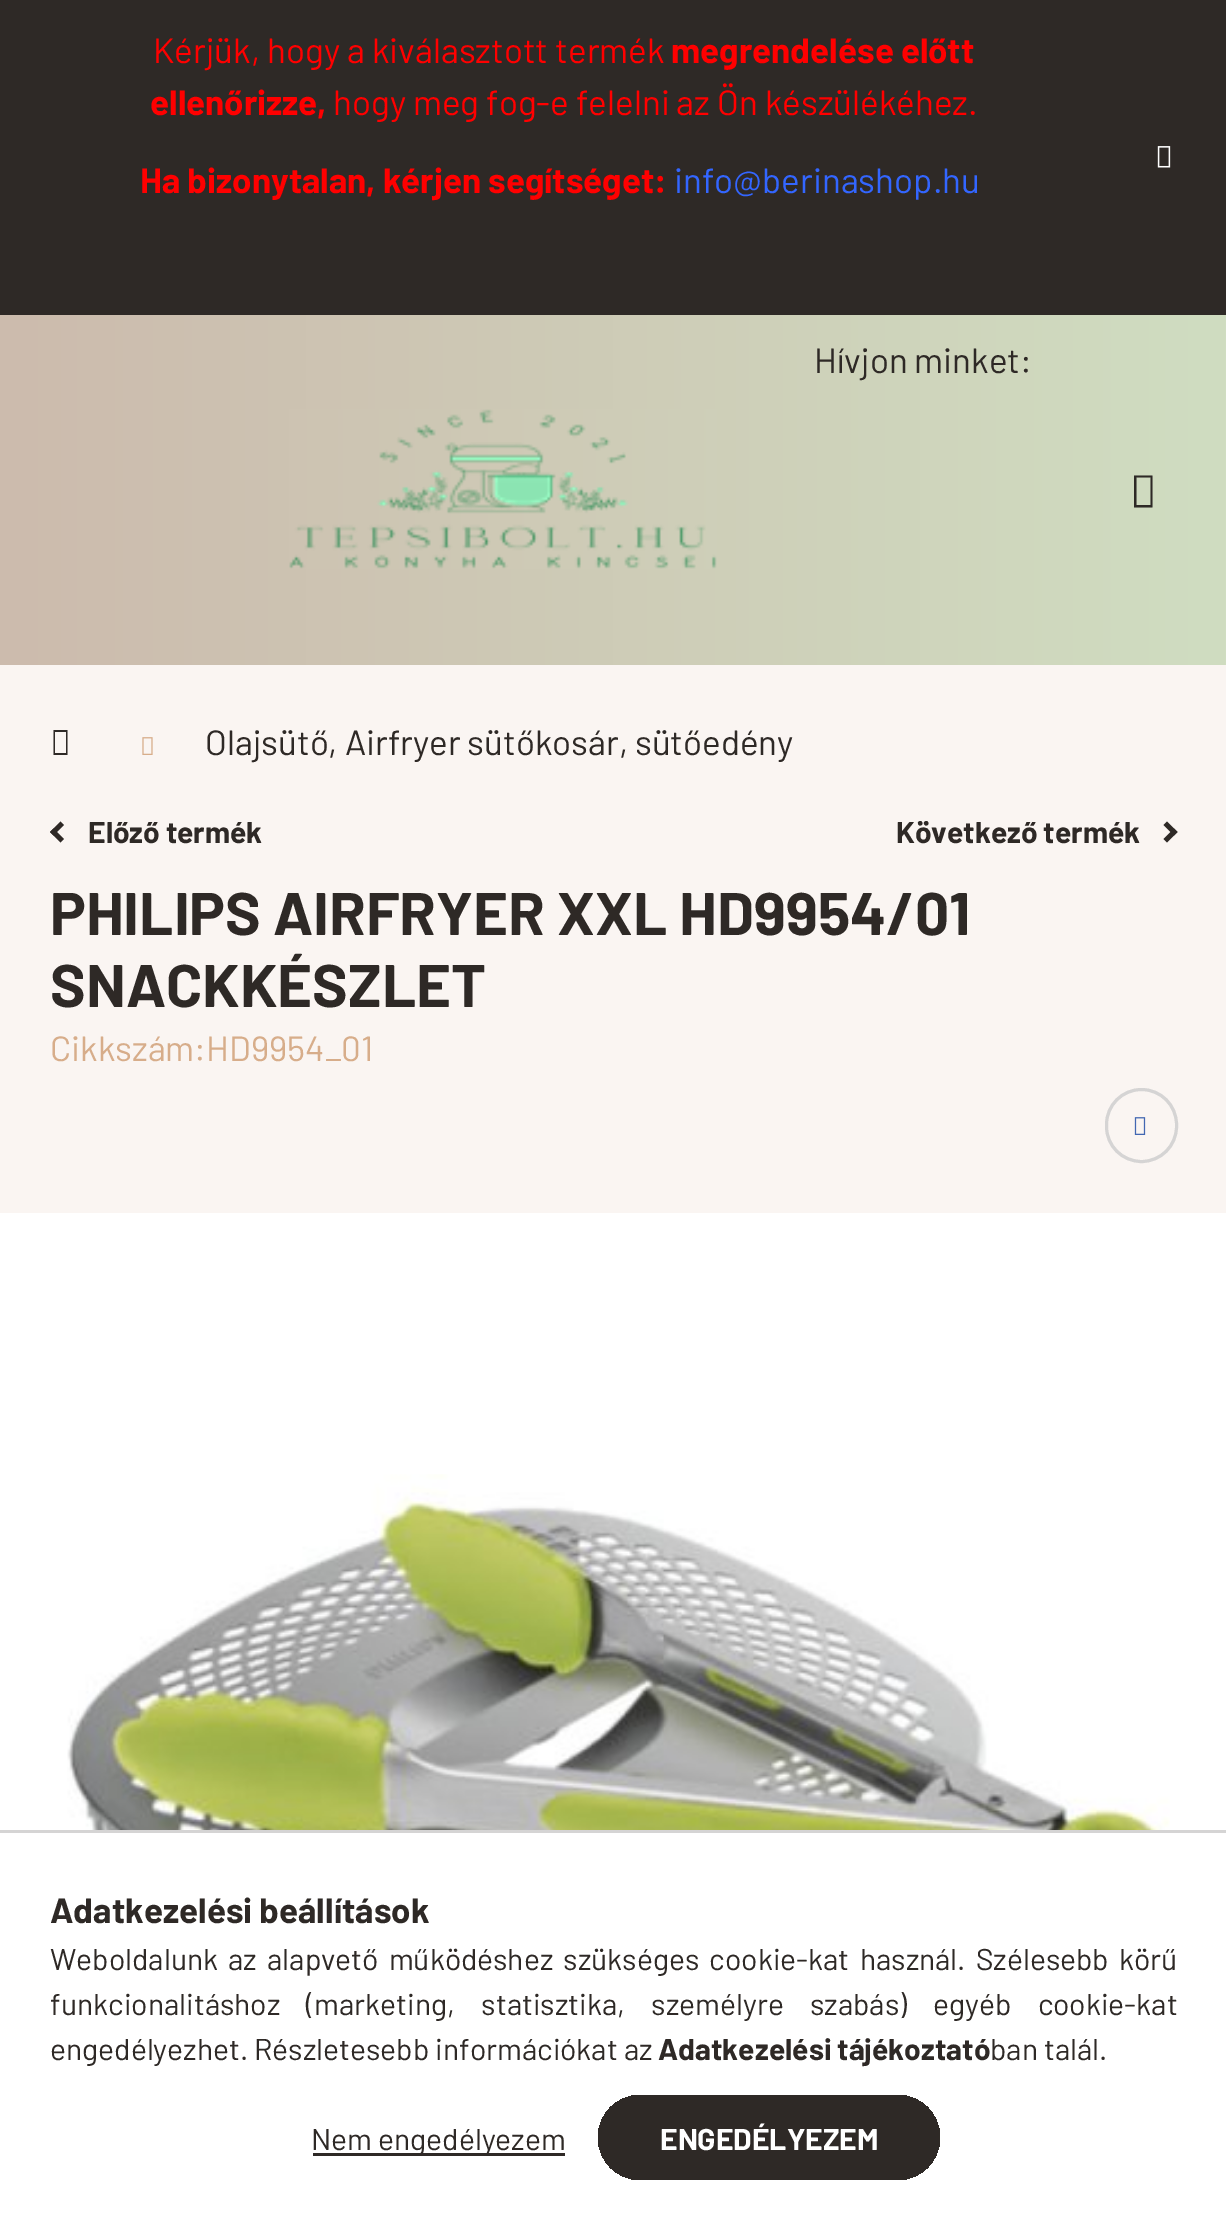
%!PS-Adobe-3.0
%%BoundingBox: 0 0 1226 2230
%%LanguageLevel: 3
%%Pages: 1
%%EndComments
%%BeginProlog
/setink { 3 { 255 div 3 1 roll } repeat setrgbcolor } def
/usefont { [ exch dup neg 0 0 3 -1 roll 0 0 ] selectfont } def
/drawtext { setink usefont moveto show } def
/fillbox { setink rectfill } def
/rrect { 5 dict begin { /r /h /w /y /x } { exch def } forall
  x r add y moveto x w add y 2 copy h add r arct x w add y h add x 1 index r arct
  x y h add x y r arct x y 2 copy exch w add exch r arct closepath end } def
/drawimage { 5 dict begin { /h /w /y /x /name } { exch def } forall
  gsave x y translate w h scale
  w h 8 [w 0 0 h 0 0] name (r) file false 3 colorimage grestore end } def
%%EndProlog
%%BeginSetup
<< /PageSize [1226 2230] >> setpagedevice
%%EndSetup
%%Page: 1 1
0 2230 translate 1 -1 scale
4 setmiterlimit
0 0 1226 2230 250 245 242 fillbox
0 0 1226 315 46 41 38 fillbox
(Kérjük, hogy a kiválasztott termék) 153 63 /Barlow-Regular 35 255 0 0 drawtext
(megrendelése előtt) 671 63 /Barlow-Bold 35 255 0 0 drawtext
(ellenőrizze,) 150 115 /Barlow-Bold 35 255 0 0 drawtext
(hogy meg fog-e felelni az Ön készülékéhez.) 333 115 /Barlow-Regular 35 255 0 0 drawtext
(assets/img1.rgb) 1157 146 14 22 drawimage
(Ha bizonytalan, kérjen segítséget:) 140 193 /Barlow-Bold 35 255 0 0 drawtext
(info@berinashop.hu) 674 193 /Barlow-Regular 35 51 102 255 drawtext
gsave 0 315 moveto 1226 315 lineto 1226 665 lineto 0 665 lineto closepath clip newpath
<< /ShadingType 2 /ColorSpace /DeviceRGB /Coords [0 1115 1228 1115] /Extend [true true] /Function << /FunctionType 2 /Domain [0 1] /C0 [0.8 0.733 0.678] /C1 [0.816 0.867 0.757] /N 1 >> >> shfill grestore
(Hívjon minket:) 814 373 /Barlow-Regular 35 46 41 38 drawtext
1134 507.5 moveto 1134 475.5 lineto 1152.5 475.5 lineto 1152.5 507.5 lineto closepath 1136.5 505 moveto 1150.5 505 lineto 1150.5 477.5 lineto 1136.5 477.5 lineto closepath fill
(assets/img2.rgb) 289 409 428 160 drawimage
53.5 755 moveto 53.5 730 lineto 67.5 730 lineto 67.5 755 lineto closepath 55 753 moveto 66 753 lineto 66 732 lineto 55 732 lineto closepath fill
(assets/img3.rgb) 142 737 11 18 drawimage
(Olajsütő, Airfryer sütőkosár, sütőedény) 205 755 /Barlow-Regular 35 46 41 38 drawtext
50 832 moveto 60.5 821.5 lineto 64 825 lineto 53.5 835.5 lineto closepath fill
53.5 828.5 moveto 64 839 lineto 60.5 842.5 lineto 50 832 lineto closepath fill
(Előző termék) 88 843 /Barlow-Bold 30 46 41 38 drawtext
(Következő termék) 896 843 /Barlow-Bold 30 46 41 38 drawtext
1163.5 839 moveto 1174 828.5 lineto 1177.5 832 lineto 1167 842.5 lineto closepath fill
1167 821.5 moveto 1177.5 832 lineto 1174 835.5 lineto 1163.5 825 lineto closepath fill
(PHILIPS AIRFRYER XXL HD9954/01) 50 935 /Barlow-Bold 60 46 41 38 drawtext
(SNACKKÉSZLET) 50 1007 /Barlow-Bold 60 46 41 38 drawtext
(Cikkszám:HD9954_01) 50 1061 /Barlow-Regular 35 215 173 138 drawtext
213 212 212 setink
3 setlinewidth
1106.5 1089.5 70 72 35 rrect stroke
(assets/img4.rgb) 1134 1117 12 18 drawimage
0 1213 1226 617 255 255 255 fillbox
(assets/img5.rgb) 67 1474 1103 356 drawimage
0 1833 1226 397 255 255 255 fillbox
0 1830 1226 3 213 212 212 fillbox
(Adatkezelési beállítások) 50 1923 /Barlow-Bold 35 46 41 38 drawtext
/Barlow-Regular 30 usefont
50 1970 moveto 4.25 0 32 (Weboldalunk az alapvető működéshez szükséges cookie-kat használ. Szélesebb körű) widthshow
50 2015 moveto 20.25 0 32 (funkcionalitáshoz \(marketing, statisztika, személyre szabás\) egyéb cookie-kat) widthshow
(engedélyezhet. Részletesebb információkat az) 50 2060 /Barlow-Regular 30 46 41 38 drawtext
(Adatkezelési tájékoztató) 658 2060 /Barlow-Bold 30 46 41 38 drawtext
(ban talál.) 990 2060 /Barlow-Regular 30 46 41 38 drawtext
313 2153 252 3 46 41 38 fillbox
(Nem engedélyezem) 311 2150 /Barlow-Regular 30 46 41 38 drawtext
gsave 598 2095 342 85 42.5 rrect clip newpath
<< /ShadingType 2 /ColorSpace /DeviceRGB /Coords [598 2138 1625 2138] /Extend [true true] /Function << /FunctionType 3 /Domain [0 1] /Functions [<< /FunctionType 2 /Domain [0 1] /C0 [0.18 0.161 0.149] /C1 [0.18 0.161 0.149] /N 1 >> << /FunctionType 2 /Domain [0 1] /C0 [0.18 0.161 0.149] /C1 [0.835 0.541 0.302] /N 1 >> << /FunctionType 2 /Domain [0 1] /C0 [0.835 0.541 0.302] /C1 [0.835 0.541 0.302] /N 1 >>] /Bounds [0.33 0.67] /Encode [0 1 0 1 0 1] >> >> shfill grestore
(ENGEDÉLYEZEM) 660 2150 /Barlow-Bold 30 255 255 255 drawtext
showpage
%%EOF
